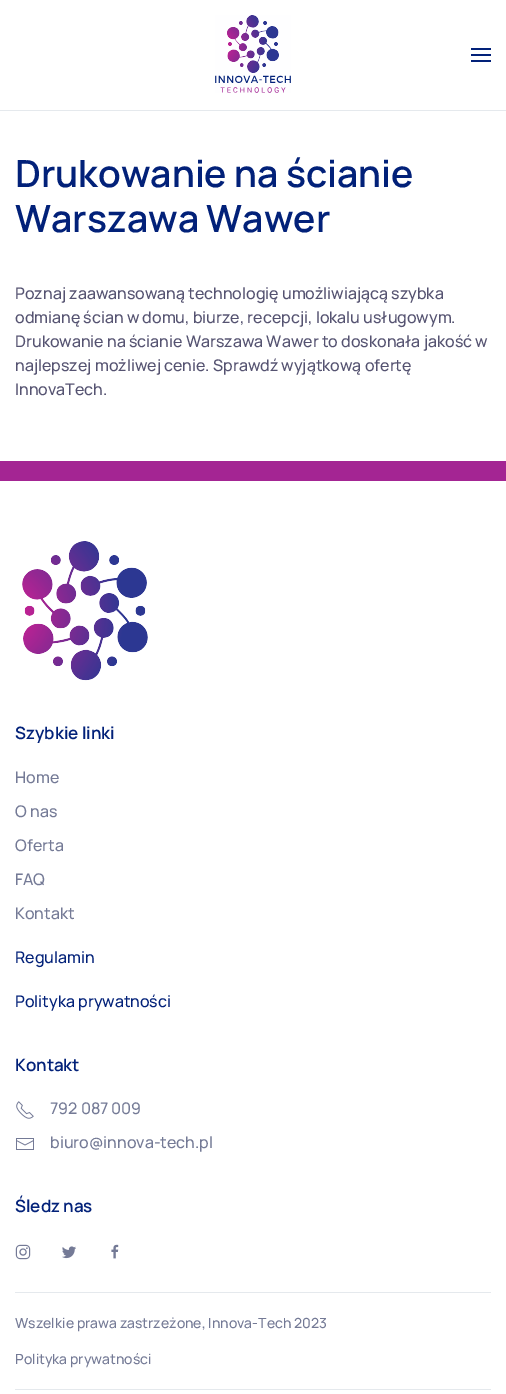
%!PS-Adobe-3.0
%%BoundingBox: 0 0 506 1394
%%LanguageLevel: 3
%%Pages: 1
%%EndComments
%%BeginProlog
/setink { 3 { 255 div 3 1 roll } repeat setrgbcolor } def
/usefont { [ exch dup neg 0 0 3 -1 roll 0 0 ] selectfont } def
/drawtext { setink usefont moveto show } def
/fillbox { setink rectfill } def
/drawimage { 5 dict begin { /h /w /y /x /name } { exch def } forall
  gsave x y translate w h scale
  w h 8 [w 0 0 h 0 0] name (r) file false 3 colorimage grestore end } def
%%EndProlog
%%BeginSetup
<< /PageSize [506 1394] >> setpagedevice
%%EndSetup
%%Page: 1 1
0 1394 translate 1 -1 scale
4 setmiterlimit
0 0 506 1394 255 255 255 fillbox
0 110 506 1 229 233 237 fillbox
(assets/img1.rgb) 215 15 76 78 drawimage
471 48 20 2 2 33 121 fillbox
471 54 20 2 2 33 121 fillbox
471 60 20 2 2 33 121 fillbox
(Drukowanie na ścianie) 15 187 /Manrope-ExtraLight 37.4 2 33 121 drawtext
(Warszawa Wawer) 15 232 /Manrope-ExtraLight 37.4 2 33 121 drawtext
(Poznaj zaawansowaną technologię umożliwiającą szybka) 15 299 /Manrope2-ExtraLight 16 85 83 113 drawtext
(odmianę ścian w domu, biurze, recepcji, lokalu usługowym.) 15 323 /Manrope2-ExtraLight 16 85 83 113 drawtext
(Drukowanie na ścianie Warszawa Wawer to doskonała jakość w) 15 347 /Manrope2-ExtraLight 16 85 83 113 drawtext
(najlepszej możliwej cenie. Sprawdź wyjątkową ofertę) 15 371 /Manrope2-ExtraLight 16 85 83 113 drawtext
(InnovaTech.) 15 395 /Manrope2-ExtraLight 16 85 83 113 drawtext
0 461 506 20 164 37 147 fillbox
(assets/img2.rgb) 22 541 126 140 drawimage
(Szybkie linki) 15 739 /Manrope-ExtraLight 17 2 33 121 drawtext
(Home) 15 783 /Manrope2-ExtraLight 16 116 122 150 drawtext
(O nas) 15 817 /Manrope2-ExtraLight 16 116 122 150 drawtext
(Oferta) 15 851 /Manrope2-ExtraLight 16 116 122 150 drawtext
(FAQ) 15 885 /Manrope2-ExtraLight 16 116 122 150 drawtext
(Kontakt) 15 919 /Manrope2-ExtraLight 16 116 122 150 drawtext
(Regulamin) 15 963 /Manrope2-ExtraLight 16 2 33 121 drawtext
(Polityka prywatności) 15 1007 /Manrope2-ExtraLight 16 2 33 121 drawtext
(Kontakt) 15 1071 /Manrope-ExtraLight 17 2 33 121 drawtext
(assets/img3.rgb) 16 1101 18 18 drawimage
(792 087 009) 50 1114 /Manrope2-ExtraLight 16 116 122 150 drawtext
(assets/img4.rgb) 16 1138 18 12 drawimage
(biuro@innova-tech.pl) 50 1148 /Manrope2-ExtraLight 16 116 122 150 drawtext
(Śledz nas) 15 1212 /Manrope-ExtraLight 17 2 33 121 drawtext
(assets/img5.rgb) 15 1244 16 16 drawimage
(assets/img6.rgb) 62 1246 14 13 drawimage
(assets/img7.rgb) 111 1244 8 15 drawimage
15 1292 476 1 229 233 237 fillbox
(Wszelkie prawa zastrzeżone, Innova-Tech 2023) 15 1328 /Manrope2-ExtraLight 14 116 122 150 drawtext
(Polityka prywatności) 15 1364 /Manrope2-ExtraLight 14 116 122 150 drawtext
15 1389 476 1 229 233 237 fillbox
showpage
%%EOF
